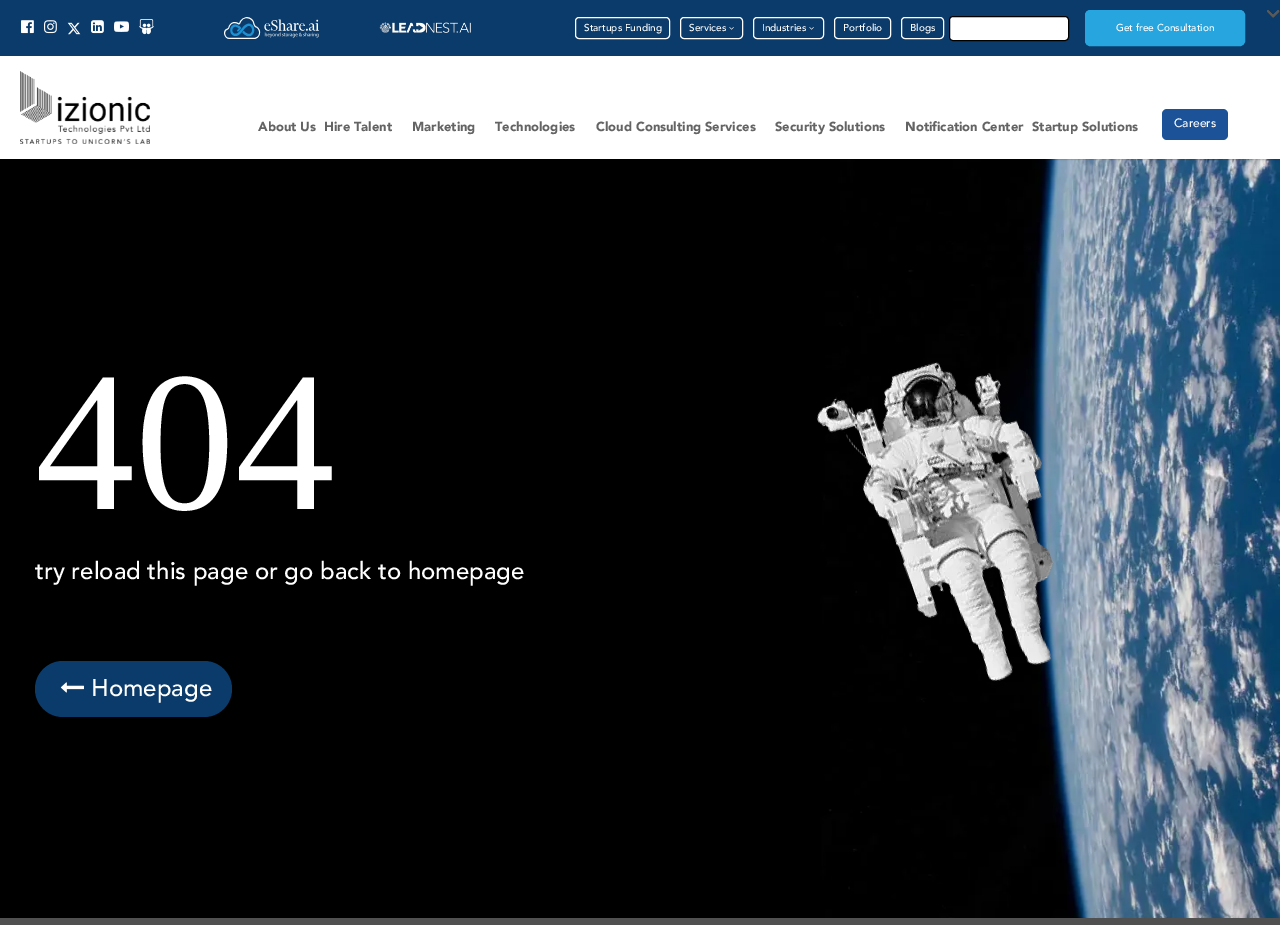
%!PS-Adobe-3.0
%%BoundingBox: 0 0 1280 925
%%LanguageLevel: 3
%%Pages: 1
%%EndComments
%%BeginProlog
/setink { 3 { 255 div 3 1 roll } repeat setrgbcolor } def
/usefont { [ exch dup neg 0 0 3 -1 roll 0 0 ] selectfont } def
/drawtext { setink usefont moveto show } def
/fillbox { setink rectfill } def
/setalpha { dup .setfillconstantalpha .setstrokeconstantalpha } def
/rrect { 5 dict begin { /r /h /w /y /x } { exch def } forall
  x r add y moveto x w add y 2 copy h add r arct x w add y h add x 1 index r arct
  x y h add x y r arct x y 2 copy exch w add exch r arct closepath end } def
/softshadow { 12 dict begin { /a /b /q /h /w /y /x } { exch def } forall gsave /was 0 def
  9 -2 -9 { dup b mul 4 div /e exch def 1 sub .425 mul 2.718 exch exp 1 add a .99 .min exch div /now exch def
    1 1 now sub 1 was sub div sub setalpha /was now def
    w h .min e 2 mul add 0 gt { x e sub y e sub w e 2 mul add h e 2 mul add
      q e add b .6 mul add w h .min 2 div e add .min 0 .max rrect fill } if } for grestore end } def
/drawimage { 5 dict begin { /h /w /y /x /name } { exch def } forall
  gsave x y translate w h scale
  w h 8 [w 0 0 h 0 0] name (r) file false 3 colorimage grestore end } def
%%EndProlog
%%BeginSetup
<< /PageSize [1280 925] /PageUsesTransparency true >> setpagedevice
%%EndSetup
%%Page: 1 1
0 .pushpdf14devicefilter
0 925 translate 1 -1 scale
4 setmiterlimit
0 0 1280 925 255 255 255 fillbox
(assets/img18.rgb) 0 159 1280 759 drawimage
0 0 0 setink
0 0 1280 159 0 1 0.34 softshadow
0 56 1280 103 255 255 255 fillbox
0 0 1280 56 11 59 106 fillbox
(assets/img1.rgb) 21 20 13 14 drawimage
(assets/img2.rgb) 44 20 13 14 drawimage
(assets/img3.rgb) 67 22 14 13 drawimage
(assets/img4.rgb) 91 20 13 14 drawimage
(assets/img5.rgb) 114 21 15 11 drawimage
(assets/img6.rgb) 139 19 15 16 drawimage
(assets/img7.rgb) 224 17 95 22 drawimage
(assets/img8.rgb) 379 22 92 11 drawimage
255 255 255 setink
575.5 17.5 94 21 3.5 rrect stroke
(Startups Funding) 584 31 /Avenir-Medium 10 255 255 255 drawtext
680.5 17.5 62 21 3.5 rrect stroke
(Services) 689 31 /Avenir-Medium 10 255 255 255 drawtext
(assets/img9.rgb) 729 27 5 3 drawimage
753.5 17.5 70 21 3.5 rrect stroke
(Industries) 762 31 /Avenir-Medium 10 255 255 255 drawtext
(assets/img9.rgb) 809 27 5 3 drawimage
834.5 17.5 56 21 3.5 rrect stroke
(Portfolio) 843 31 /Avenir-Medium 10 255 255 255 drawtext
901.5 17.5 42 21 3.5 rrect stroke
(Blogs) 910 31 /Avenir-Medium 10 255 255 255 drawtext
949.5 16.5 119 24 3.5 rrect gsave fill grestore
0 0 0 setink
stroke
39 165 222 setink
1085.5 10.5 159 35 4.5 rrect gsave fill grestore
stroke
(Get free Consultation) 1116 31 /Avenir-Medium 10 255 255 255 drawtext
(assets/img10.rgb) 20 71 130 73 drawimage
(assets/img11.rgb) 1267 10 13 8 drawimage
(About Us) 258 131 /Avenir-Black 13 100 100 100 drawtext
(assets/img12.rgb) 1267 10 13 8 drawimage
(Hire Talent) 324 131 /Avenir-Black 13 100 100 100 drawtext
(assets/img13.rgb) 1267 10 13 8 drawimage
(Marketing) 412 131 /Avenir-Black 13 100 100 100 drawtext
(assets/img14.rgb) 1267 10 13 8 drawimage
(Technologies) 495 131 /Avenir-Black 13 100 100 100 drawtext
(assets/img15.rgb) 1270 10 10 8 drawimage
(Cloud Consulting Services) 596 131 /Avenir-Black 13 100 100 100 drawtext
(assets/img16.rgb) 1270 12 9 6 drawimage
(Security Solutions) 775 131 /Avenir-Black 13 100 100 100 drawtext
(assets/img17.rgb) 1273 12 6 6 drawimage
(Notification Center) 905 131 /Avenir-Black 13 100 100 100 drawtext
(Startup Solutions) 1032 131 /Avenir-Black 13 100 100 100 drawtext
27 82 152 setink
1162 109 66 31 5 rrect fill
(Careers) 1174 127 /Avenir-Medium 12 255 255 255 drawtext
(404) 35 509 /LiberationSerif-Regular 200 255 255 255 drawtext
(try reload this page or go back to homepage) 35 579 /Avenir-Medium 24 255 255 255 drawtext
11 59 106 setink
35 661 197 56 28 rrect fill
(assets/img19.rgb) 60 682 24 11 drawimage
(Homepage) 91 696 /Avenir-Medium 24 255 255 255 drawtext
(assets/img20.rgb) 816 362 238 320 drawimage
0 918 1280 7 80 80 80 fillbox
.poppdf14devicefilter showpage
%%EOF
